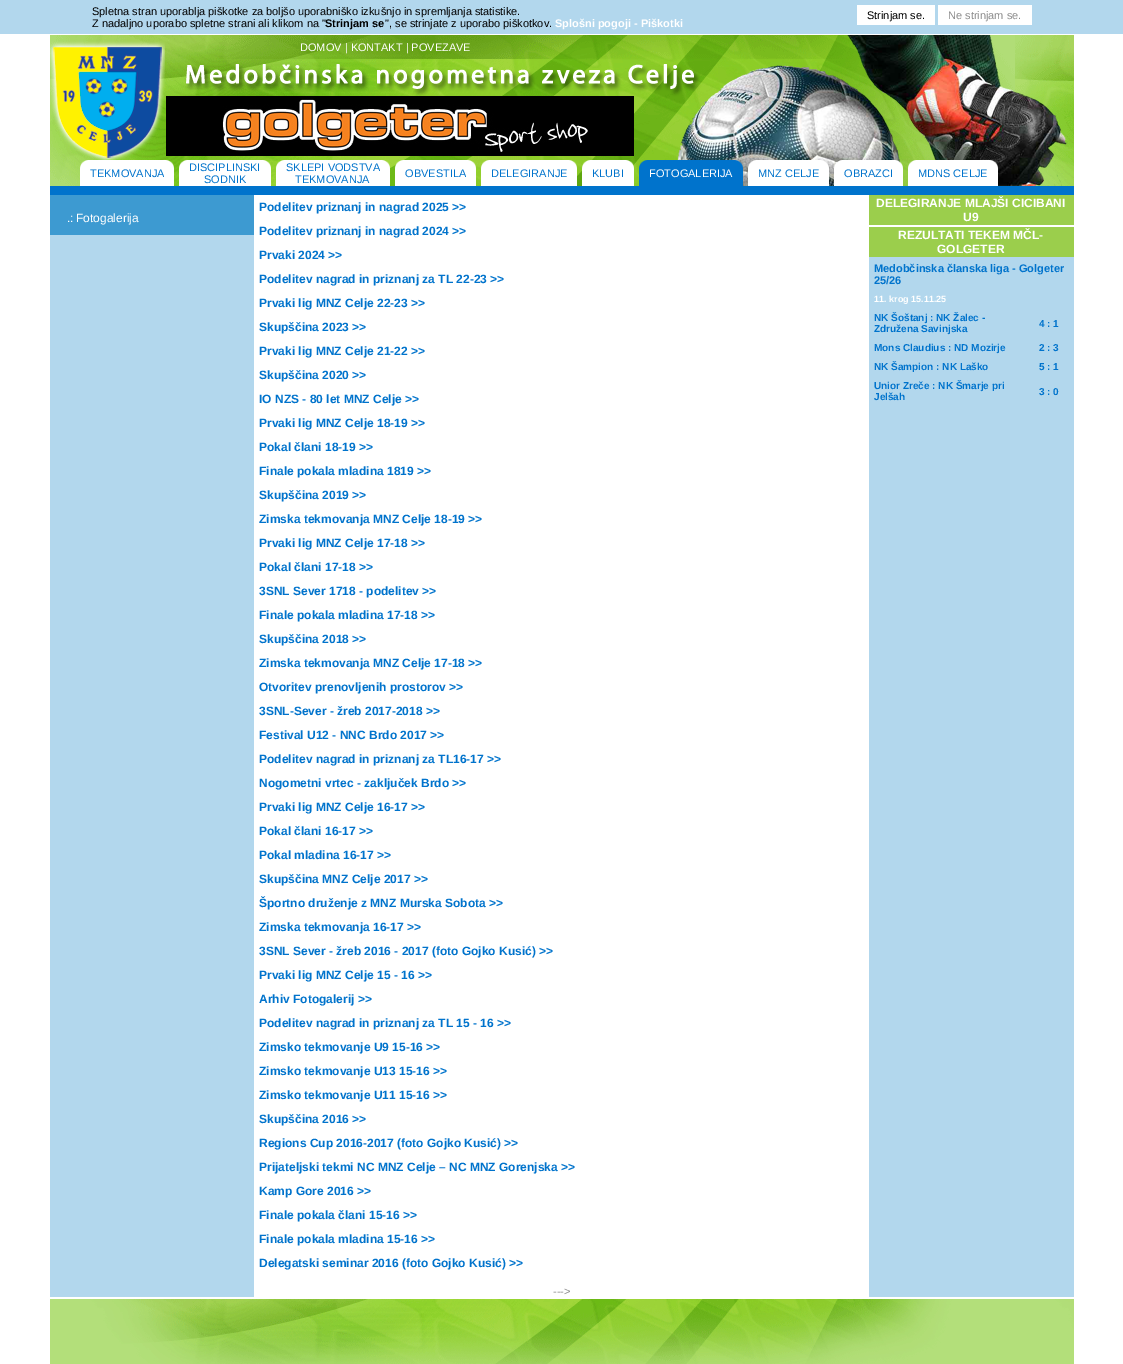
%!PS-Adobe-3.0
%%BoundingBox: 0 0 1123 1364
%%LanguageLevel: 3
%%Pages: 1
%%EndComments
%%BeginProlog
/setink { 3 { 255 div 3 1 roll } repeat setrgbcolor } def
/usefont { [ exch dup neg 0 0 3 -1 roll 0 0 ] selectfont } def
/drawtext { setink usefont moveto show } def
/fillbox { setink rectfill } def
/drawimage { 5 dict begin { /h /w /y /x /name } { exch def } forall
  gsave x y translate w h scale
  w h 8 [w 0 0 h 0 0] name (r) file false 3 colorimage grestore end } def
%%EndProlog
%%BeginSetup
<< /PageSize [1123 1364] >> setpagedevice
%%EndSetup
%%Page: 1 1
0 1364 translate 1 -1 scale
4 setmiterlimit
0 0 1123 1364 255 255 255 fillbox
0 0 1123 34 178 215 237 fillbox
(Spletna stran uporablja piškotke za boljšo uporabniško izkušnjo in spremljanja statistike.) 92 15 /LiberationSans-Regular 11 0 0 0 drawtext
(Z nadaljno uporabo spletne strani ali klikom na ") 92 27 /LiberationSans-Regular 11 0 0 0 drawtext
(Strinjam se) 325 27 /LiberationSans-Bold 11 0 0 0 drawtext
(", se strinjate z uporabo piškotkov.) 385 27 /LiberationSans-Regular 11 0 0 0 drawtext
(Splošni pogoji - Piškotki) 555 27 /LiberationSans-Bold 11 255 255 255 drawtext
857 5 78 20 255 255 255 fillbox
(Strinjam se.) 867 19 /LiberationSans-Regular 11 0 0 0 drawtext
938 5 94 20 255 255 255 fillbox
(Ne strinjam se.) 948 19 /LiberationSans-Regular 11 140 140 140 drawtext
(assets/img1.rgb) 50 35 1024 151 drawimage
(assets/img2.rgb) 50 41 115 119 drawimage
(assets/img3.rgb) 166 96 468 60 drawimage
(assets/img4.rgb) 677 35 391 151 drawimage
(DOMOV | KONTAKT | POVEZAVE) 300 51 /LiberationSans-Regular 11 255 255 255 drawtext
(assets/img5.rgb) 80 160 10 26 drawimage
90 160 74 26 255 255 255 fillbox
(TEKMOVANJA) 90 177 /LiberationSans-Regular 11 0 115 204 drawtext
(assets/img6.rgb) 164 160 10 26 drawimage
(assets/img7.rgb) 179 160 10 26 drawimage
189 160 72 26 255 255 255 fillbox
(DISCIPLINSKI) 189 171 /LiberationSans-Regular 11 0 115 204 drawtext
(SODNIK) 204 183 /LiberationSans-Regular 11 0 115 204 drawtext
(assets/img8.rgb) 261 160 10 26 drawimage
(assets/img9.rgb) 276 160 10 26 drawimage
286 160 94 26 255 255 255 fillbox
(SKLEPI VODSTVA) 286 171 /LiberationSans-Regular 11 0 115 204 drawtext
(TEKMOVANJA) 295 183 /LiberationSans-Regular 11 0 115 204 drawtext
(assets/img10.rgb) 380 160 10 26 drawimage
(assets/img11.rgb) 395 160 10 26 drawimage
405 160 61 26 255 255 255 fillbox
(OBVESTILA) 405 177 /LiberationSans-Regular 11 0 115 204 drawtext
(assets/img12.rgb) 466 160 10 26 drawimage
(assets/img13.rgb) 481 160 10 26 drawimage
491 160 76 26 255 255 255 fillbox
(DELEGIRANJE) 491 177 /LiberationSans-Regular 11 0 115 204 drawtext
(assets/img14.rgb) 567 160 10 26 drawimage
(assets/img15.rgb) 582 160 10 26 drawimage
592 160 32 26 255 255 255 fillbox
(KLUBI) 592 177 /LiberationSans-Regular 11 0 115 204 drawtext
(assets/img16.rgb) 624 160 10 26 drawimage
(assets/img17.rgb) 639 160 10 26 drawimage
649 160 84 26 0 115 204 fillbox
(FOTOGALERIJA) 649 177 /LiberationSans-Regular 11 255 255 255 drawtext
(assets/img18.rgb) 733 160 10 26 drawimage
(assets/img19.rgb) 748 160 10 26 drawimage
758 160 61 26 255 255 255 fillbox
(MNZ CELJE) 758 177 /LiberationSans-Regular 11 0 115 204 drawtext
(assets/img20.rgb) 819 160 10 26 drawimage
(assets/img21.rgb) 834 160 10 26 drawimage
844 160 49 26 255 255 255 fillbox
(OBRAZCI) 844 177 /LiberationSans-Regular 11 0 115 204 drawtext
(assets/img22.rgb) 893 160 10 26 drawimage
(assets/img23.rgb) 908 160 10 26 drawimage
918 160 70 26 255 255 255 fillbox
(MDNS CELJE) 918 177 /LiberationSans-Regular 11 0 115 204 drawtext
(assets/img24.rgb) 988 160 10 26 drawimage
50 186 1024 9 0 115 204 fillbox
50 235 204 1062 178 215 237 fillbox
50 195 204 40 61 154 209 fillbox
(.:) 67 222 /LiberationSans-Regular 12 255 255 255 drawtext
(Fotogalerija) 76 222 /LiberationSans-Regular 12 255 255 255 drawtext
(Podelitev priznanj in nagrad 2025 >>) 259 211 /LiberationSans-Bold 12 0 115 204 drawtext
(Podelitev priznanj in nagrad 2024 >>) 259 235 /LiberationSans-Bold 12 0 115 204 drawtext
(Prvaki 2024 >>) 259 259 /LiberationSans-Bold 12 0 115 204 drawtext
(Podelitev nagrad in priznanj za TL 22-23 >>) 259 283 /LiberationSans-Bold 12 0 115 204 drawtext
(Prvaki lig MNZ Celje 22-23 >>) 259 307 /LiberationSans-Bold 12 0 115 204 drawtext
(Skupščina 2023 >>) 259 331 /LiberationSans-Bold 12 0 115 204 drawtext
(Prvaki lig MNZ Celje 21-22 >>) 259 355 /LiberationSans-Bold 12 0 115 204 drawtext
(Skupščina 2020 >>) 259 379 /LiberationSans-Bold 12 0 115 204 drawtext
(IO NZS - 80 let MNZ Celje >>) 259 403 /LiberationSans-Bold 12 0 115 204 drawtext
(Prvaki lig MNZ Celje 18-19 >>) 259 427 /LiberationSans-Bold 12 0 115 204 drawtext
(Pokal člani 18-19 >>) 259 451 /LiberationSans-Bold 12 0 115 204 drawtext
(Finale pokala mladina 1819 >>) 259 475 /LiberationSans-Bold 12 0 115 204 drawtext
(Skupščina 2019 >>) 259 499 /LiberationSans-Bold 12 0 115 204 drawtext
(Zimska tekmovanja MNZ Celje 18-19 >>) 259 523 /LiberationSans-Bold 12 0 115 204 drawtext
(Prvaki lig MNZ Celje 17-18 >>) 259 547 /LiberationSans-Bold 12 0 115 204 drawtext
(Pokal člani 17-18 >>) 259 571 /LiberationSans-Bold 12 0 115 204 drawtext
(3SNL Sever 1718 - podelitev >>) 259 595 /LiberationSans-Bold 12 0 115 204 drawtext
(Finale pokala mladina 17-18 >>) 259 619 /LiberationSans-Bold 12 0 115 204 drawtext
(Skupščina 2018 >>) 259 643 /LiberationSans-Bold 12 0 115 204 drawtext
(Zimska tekmovanja MNZ Celje 17-18 >>) 259 667 /LiberationSans-Bold 12 0 115 204 drawtext
(Otvoritev prenovljenih prostorov >>) 259 691 /LiberationSans-Bold 12 0 115 204 drawtext
(3SNL-Sever - žreb 2017-2018 >>) 259 715 /LiberationSans-Bold 12 0 115 204 drawtext
(Festival U12 - NNC Brdo 2017 >>) 259 739 /LiberationSans-Bold 12 0 115 204 drawtext
(Podelitev nagrad in priznanj za TL16-17 >>) 259 763 /LiberationSans-Bold 12 0 115 204 drawtext
(Nogometni vrtec - zaključek Brdo >>) 259 787 /LiberationSans-Bold 12 0 115 204 drawtext
(Prvaki lig MNZ Celje 16-17 >>) 259 811 /LiberationSans-Bold 12 0 115 204 drawtext
(Pokal člani 16-17 >>) 259 835 /LiberationSans-Bold 12 0 115 204 drawtext
(Pokal mladina 16-17 >>) 259 859 /LiberationSans-Bold 12 0 115 204 drawtext
(Skupščina MNZ Celje 2017 >>) 259 883 /LiberationSans-Bold 12 0 115 204 drawtext
(Športno druženje z MNZ Murska Sobota >>) 259 907 /LiberationSans-Bold 12 0 115 204 drawtext
(Zimska tekmovanja 16-17 >>) 259 931 /LiberationSans-Bold 12 0 115 204 drawtext
(3SNL Sever - žreb 2016 - 2017 \(foto Gojko Kusić\) >>) 259 955 /LiberationSans-Bold 12 0 115 204 drawtext
(Prvaki lig MNZ Celje 15 - 16 >>) 259 979 /LiberationSans-Bold 12 0 115 204 drawtext
(Arhiv Fotogalerij >>) 259 1003 /LiberationSans-Bold 12 0 115 204 drawtext
(Podelitev nagrad in priznanj za TL 15 - 16 >>) 259 1027 /LiberationSans-Bold 12 0 115 204 drawtext
(Zimsko tekmovanje U9 15-16 >>) 259 1051 /LiberationSans-Bold 12 0 115 204 drawtext
(Zimsko tekmovanje U13 15-16 >>) 259 1075 /LiberationSans-Bold 12 0 115 204 drawtext
(Zimsko tekmovanje U11 15-16 >>) 259 1099 /LiberationSans-Bold 12 0 115 204 drawtext
(Skupščina 2016 >>) 259 1123 /LiberationSans-Bold 12 0 115 204 drawtext
(Regions Cup 2016-2017 \(foto Gojko Kusić\) >>) 259 1147 /LiberationSans-Bold 12 0 115 204 drawtext
(Prijateljski tekmi NC MNZ Celje – NC MNZ Gorenjska >>) 259 1171 /LiberationSans-Bold 12 0 115 204 drawtext
(Kamp Gore 2016 >>) 259 1195 /LiberationSans-Bold 12 0 115 204 drawtext
(Finale pokala člani 15-16 >>) 259 1219 /LiberationSans-Bold 12 0 115 204 drawtext
(Finale pokala mladina 15-16 >>) 259 1243 /LiberationSans-Bold 12 0 115 204 drawtext
(Delegatski seminar 2016 \(foto Gojko Kusić\) >>) 259 1267 /LiberationSans-Bold 12 0 115 204 drawtext
(--->) 553 1295 /LiberationSans-Regular 11 140 140 140 drawtext
869 257 205 1040 178 215 237 fillbox
869 195 205 62 155 206 76 fillbox
(DELEGIRANJE MLAJŠI CICIBANI) 876 207 /LiberationSans-Bold 12 255 255 255 drawtext
(U9) 963 221 /LiberationSans-Bold 12 255 255 255 drawtext
869 225 205 2 255 255 255 fillbox
(REZULTATI TEKEM MČL-) 898 239 /LiberationSans-Bold 12 255 255 255 drawtext
(GOLGETER) 937 253 /LiberationSans-Bold 12 255 255 255 drawtext
(Medobčinska članska liga - Golgeter) 874 272 /LiberationSans-Bold 11 0 115 204 drawtext
(25/26) 874 284 /LiberationSans-Bold 11 0 115 204 drawtext
(11. krog 15.11.25) 874 302 /LiberationSans-Bold 9 255 255 255 drawtext
(NK Šoštanj : NK Žalec -) 874 321 /LiberationSans-Bold 10 0 115 204 drawtext
(Združena Savinjska) 874 332 /LiberationSans-Bold 10 0 115 204 drawtext
(4 : 1) 1039 327 /LiberationSans-Bold 10 0 115 204 drawtext
(Mons Claudius : ND Mozirje) 874 351 /LiberationSans-Bold 10 0 115 204 drawtext
(2 : 3) 1039 351 /LiberationSans-Bold 10 0 115 204 drawtext
(NK Šampion : NK Laško) 874 370 /LiberationSans-Bold 10 0 115 204 drawtext
(5 : 1) 1039 370 /LiberationSans-Bold 10 0 115 204 drawtext
(Unior Zreče : NK Šmarje pri) 874 389 /LiberationSans-Bold 10 0 115 204 drawtext
(Jelšah) 874 400 /LiberationSans-Bold 10 0 115 204 drawtext
(3 : 0) 1039 395 /LiberationSans-Bold 10 0 115 204 drawtext
(assets/img25.rgb) 50 1299 1024 65 drawimage
showpage
%%EOF
